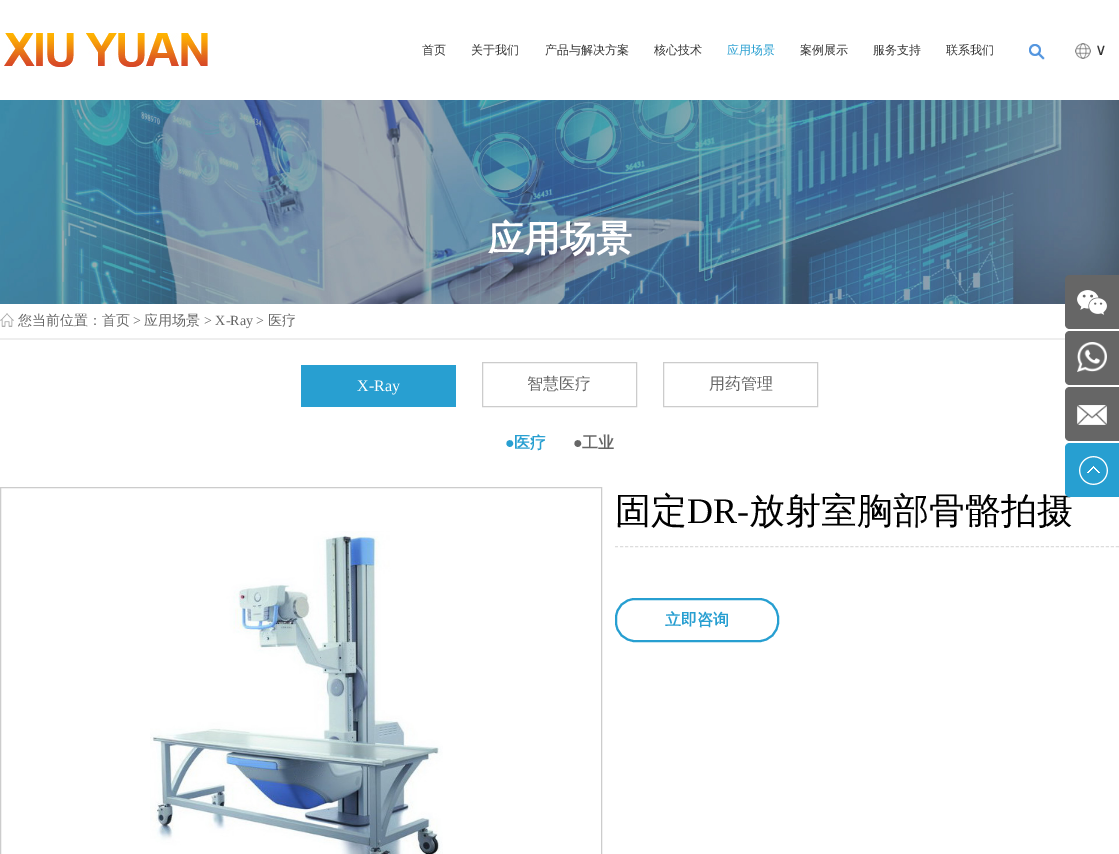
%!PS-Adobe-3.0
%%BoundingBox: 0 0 1119 854
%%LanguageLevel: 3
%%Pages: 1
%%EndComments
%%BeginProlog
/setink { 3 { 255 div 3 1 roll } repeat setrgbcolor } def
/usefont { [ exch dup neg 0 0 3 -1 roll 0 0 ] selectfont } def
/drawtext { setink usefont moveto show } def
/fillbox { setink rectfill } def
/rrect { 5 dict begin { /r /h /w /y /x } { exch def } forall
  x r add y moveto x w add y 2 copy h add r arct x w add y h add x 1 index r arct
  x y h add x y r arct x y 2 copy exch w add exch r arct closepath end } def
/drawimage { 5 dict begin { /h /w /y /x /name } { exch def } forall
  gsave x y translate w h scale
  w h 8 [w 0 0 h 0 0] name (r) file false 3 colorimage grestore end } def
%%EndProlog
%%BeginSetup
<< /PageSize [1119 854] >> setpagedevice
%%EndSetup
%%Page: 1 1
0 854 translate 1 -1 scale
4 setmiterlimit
0 0 1119 854 255 255 255 fillbox
(assets/img1.rgb) 1 33 207 37 drawimage
(首页) 422 54 /WenQuanYiZenHei-Medium 12 51 51 51 drawtext
(关于我们) 471 54 /WenQuanYiZenHei-Medium 12 51 51 51 drawtext
(产品与解决方案) 545 54 /WenQuanYiZenHei-Medium 12 51 51 51 drawtext
(核心技术) 654 54 /WenQuanYiZenHei-Medium 12 51 51 51 drawtext
(应用场景) 727 54 /WenQuanYiZenHei-Medium 12 40 159 209 drawtext
(案例展示) 800 54 /WenQuanYiZenHei-Medium 12 51 51 51 drawtext
(服务支持) 873 54 /WenQuanYiZenHei-Medium 12 51 51 51 drawtext
(联系我们) 946 54 /WenQuanYiZenHei-Medium 12 51 51 51 drawtext
(assets/img2.rgb) 1029 44 16 16 drawimage
(assets/img3.rgb) 1075 43 16 16 drawimage
(∨) 1095 55 /DejaVuSans-Regular 16 51 51 51 drawtext
(assets/img4.rgb) 0 100 1119 204 drawimage
(应用场景) 488 251 /WenQuanYiZenHei-Bold 36 255 255 255 drawtext
0 338 1065 2 238 238 238 fillbox
(assets/img5.rgb) 0 313 14 14 drawimage
(您当前位置：首页) 18 325 /WenQuanYiZenHei-Medium 14 102 102 102 drawtext
(>) 133 325 /LiberationSerif-Regular 14 102 102 102 drawtext
(应用场景) 144 325 /WenQuanYiZenHei-Medium 14 102 102 102 drawtext
(> X-Ray >) 204 325 /LiberationSerif-Regular 14 102 102 102 drawtext
(医疗) 268 325 /WenQuanYiZenHei-Medium 14 102 102 102 drawtext
1070 275 moveto 1119 275 lineto 1119 329 lineto 1070 329 lineto 1067 329 1065 327 1065 324 curveto 1065 280 lineto 1065 277 1067 275 1070 275 curveto closepath fill
(assets/img6.rgb) 1077 290 30 25 drawimage
1070 331 moveto 1119 331 lineto 1119 385 lineto 1070 385 lineto 1067 385 1065 383 1065 380 curveto 1065 336 lineto 1065 333 1067 331 1070 331 curveto closepath fill
(assets/img7.rgb) 1077 342 30 30 drawimage
1070 387 moveto 1119 387 lineto 1119 441 lineto 1070 441 lineto 1067 441 1065 439 1065 436 curveto 1065 392 lineto 1065 389 1067 387 1070 387 curveto closepath fill
(assets/img8.rgb) 1077 405 30 20 drawimage
(放射室胸部骨骼拍摄) 749 523 /WenQuanYiZenHei-Medium 36 0 0 0 drawtext
39 159 209 setink
1070 443 moveto 1119 443 lineto 1119 497 lineto 1070 497 lineto 1067 497 1065 495 1065 492 curveto 1065 448 lineto 1065 445 1067 443 1070 443 curveto closepath fill
(assets/img9.rgb) 1079 456 29 29 drawimage
301 365 155 42 40 159 209 fillbox
(X-Ray) 357 391 /LiberationSerif-Regular 16 255 255 255 drawtext
204 204 204 setink
482.5 362.5 154 44 rectstroke
(智慧医疗) 527 389 /WenQuanYiZenHei-Medium 16 102 102 102 drawtext
204 204 204 setink
663.5 362.5 154 44 rectstroke
(用药管理) 709 389 /WenQuanYiZenHei-Medium 16 102 102 102 drawtext
(●) 505 448 /LiberationSerif-Bold 16 40 159 209 drawtext
(医疗) 514 448 /WenQuanYiZenHei-Bold 16 40 159 209 drawtext
(●) 573 448 /LiberationSerif-Bold 16 102 102 102 drawtext
(工业) 582 448 /WenQuanYiZenHei-Bold 16 102 102 102 drawtext
204 204 204 setink
0.5 487.5 601 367 rectstroke
(assets/img10.rgb) 150 531 293 323 drawimage
221 221 221 setink
[3 2.01] 0 setdash
615 546.5 moveto 1119 546.5 lineto stroke
(固定) 615 523 /WenQuanYiZenHei-Medium 36 0 0 0 drawtext
(DR-) 687 523 /LiberationSerif-Regular 36 0 0 0 drawtext
39 159 209 setink
2 setlinewidth
[] 0 setdash
616 599 162 42 19 rrect stroke
(立即咨询) 665 625 /WenQuanYiZenHei-Bold 16 40 159 209 drawtext
showpage
%%EOF
